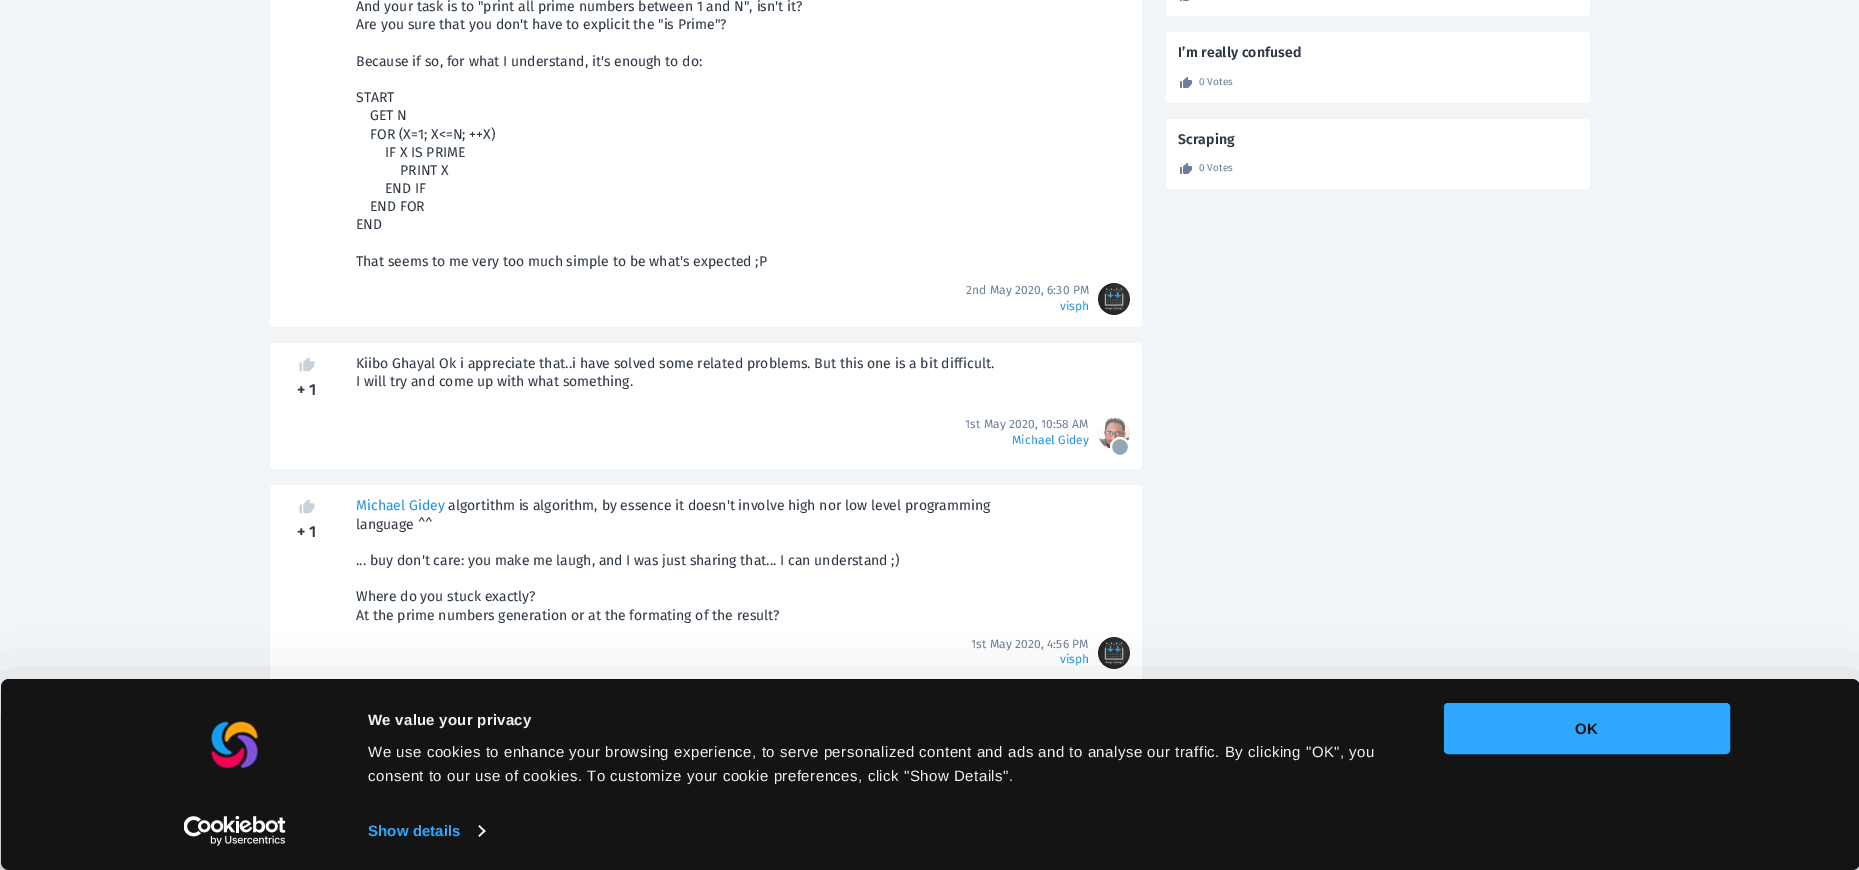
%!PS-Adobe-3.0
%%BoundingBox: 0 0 1859 870
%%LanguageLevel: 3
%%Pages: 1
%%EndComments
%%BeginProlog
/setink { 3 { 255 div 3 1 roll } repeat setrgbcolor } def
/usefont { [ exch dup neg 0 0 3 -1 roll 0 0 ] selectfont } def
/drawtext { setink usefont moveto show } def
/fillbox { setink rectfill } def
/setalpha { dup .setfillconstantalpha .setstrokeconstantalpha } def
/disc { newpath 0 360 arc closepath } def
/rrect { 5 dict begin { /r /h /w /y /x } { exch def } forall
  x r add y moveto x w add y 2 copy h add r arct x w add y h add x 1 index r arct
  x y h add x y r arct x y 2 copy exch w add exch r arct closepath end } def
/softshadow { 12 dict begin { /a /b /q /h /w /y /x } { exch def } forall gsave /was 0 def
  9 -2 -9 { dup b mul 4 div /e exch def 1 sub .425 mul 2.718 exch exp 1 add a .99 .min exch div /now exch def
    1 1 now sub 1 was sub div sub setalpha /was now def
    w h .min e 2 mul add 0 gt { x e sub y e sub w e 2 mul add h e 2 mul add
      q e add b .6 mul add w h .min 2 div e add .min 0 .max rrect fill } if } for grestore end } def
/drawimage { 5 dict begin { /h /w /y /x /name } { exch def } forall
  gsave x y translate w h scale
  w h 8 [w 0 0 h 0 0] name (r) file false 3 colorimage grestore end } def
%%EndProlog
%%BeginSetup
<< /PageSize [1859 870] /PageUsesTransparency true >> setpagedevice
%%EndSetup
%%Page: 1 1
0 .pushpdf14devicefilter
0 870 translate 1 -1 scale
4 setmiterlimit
0 0 1859 870 242 245 247 fillbox
255 255 255 setink
270 -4 872 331 4 rrect fill
(And your task is to "print all prime numbers between 1 and N", isn't it?) 356 11 /FiraSans-Regular 14 45 56 70 drawtext
(Are you sure that you don't have to explicit the "is Prime"?) 356 29 /FiraSans-Regular 14 45 56 70 drawtext
(Because if so, for what I understand, it's enough to do:) 356 66 /FiraSans-Regular 14 45 56 70 drawtext
(START) 356 102 /FiraSans-Regular 14 45 56 70 drawtext
(GET N) 370 120 /FiraSans-Regular 14 45 56 70 drawtext
(FOR \(X=1; X<=N; ++X\)) 370 139 /FiraSans-Regular 14 45 56 70 drawtext
(IF X IS PRIME) 385 157 /FiraSans-Regular 14 45 56 70 drawtext
(PRINT X) 400 175 /FiraSans-Regular 14 45 56 70 drawtext
(END IF) 385 193 /FiraSans-Regular 14 45 56 70 drawtext
(END FOR) 370 211 /FiraSans-Regular 14 45 56 70 drawtext
(END) 356 229 /FiraSans-Regular 14 45 56 70 drawtext
(That seems to me very too much simple to be what's expected ;P) 356 266 /FiraSans-Regular 14 45 56 70 drawtext
/FiraSans-Regular 12 usefont
107 127 153 setink
966 294 moveto 0.1 0 (2nd May 2020, 6:30 PM) ashow
36 147 223 setink
1060 310 moveto 0.1 0 (visph) ashow
(assets/img1.rgb) 1098 283 32 32 drawimage
255 255 255 setink
270 343 872 126 4 rrect fill
(assets/img2.rgb) 299 357 16 15 drawimage
(+ 1) 297 395 /FiraSans-SemiBold 16 45 56 70 drawtext
(Kiibo Ghayal Ok i appreciate that..i have solved some related problems. But this one is a bit difficult.) 356 368 /FiraSans-Regular 14 45 56 70 drawtext
(I will try and come up with what something.) 356 386 /FiraSans-Regular 14 45 56 70 drawtext
/FiraSans-Regular 12 usefont
107 127 153 setink
965 428 moveto 0.1 0 (1st May 2020, 10:58 AM) ashow
36 147 223 setink
1012 444 moveto 0.1 0 (Michael Gidey) ashow
(assets/img3.rgb) 1098 417 32 32 drawimage
150 165 179 setink
1120 447 9 disc gsave fill grestore
255 255 255 setink
2 setlinewidth
stroke
270 485 872 196 4 rrect fill
(assets/img2.rgb) 299 499 16 15 drawimage
(+ 1) 297 537 /FiraSans-SemiBold 16 45 56 70 drawtext
(Michael Gidey) 356 510 /FiraSans-Regular 14 36 147 223 drawtext
(algortithm is algorithm, by essence it doesn't involve high nor low level programming) 448 510 /FiraSans-Regular 14 45 56 70 drawtext
(language ^^) 356 529 /FiraSans-Regular 14 45 56 70 drawtext
(... buy don't care: you make me laugh, and I was just sharing that... I can understand ;\)) 356 565 /FiraSans-Regular 14 45 56 70 drawtext
(Where do you stuck exactly?) 356 601 /FiraSans-Regular 14 45 56 70 drawtext
(At the prime numbers generation or at the formating of the result?) 356 620 /FiraSans-Regular 14 45 56 70 drawtext
/FiraSans-Regular 12 usefont
107 127 153 setink
971 648 moveto 0.1 0 (1st May 2020, 4:56 PM) ashow
36 147 223 setink
1060 663 moveto 0.1 0 (visph) ashow
(assets/img1.rgb) 1098 637 32 32 drawimage
255 255 255 setink
1166 -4 424 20 4 rrect fill
(assets/img4.rgb) 1180 0 9 1 drawimage
1166 32 424 71 4 rrect fill
/FiraSans-SemiBold 14 usefont
45 56 70 setink
1178 57 moveto 0.1 0 (I’m really confused) ashow
(assets/img5.rgb) 1180 77 12 11 drawimage
/FiraSans-Regular 10 usefont
107 127 153 setink
1199 85 moveto 0.1 0 (0 Votes) ashow
255 255 255 setink
1166 119 424 70 4 rrect fill
/FiraSans-SemiBold 14 usefont
45 56 70 setink
1178 144 moveto 0.1 0 (Scraping) ashow
(assets/img5.rgb) 1180 163 12 11 drawimage
/FiraSans-Regular 10 usefont
107 127 153 setink
1199 171 moveto 0.1 0 (0 Votes) ashow
0 0 0 setink
1 709 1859 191 8 35 0.3 softshadow
20 20 20 setink
1 679 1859 191 8 rrect fill
(assets/img6.rgb) 211 721 47 47 drawimage
(assets/img7.rgb) 184 816 102 30 drawimage
/LiberationSans-Bold 15 usefont
242 242 242 setink
368 725 moveto 0.25 0 (We value your privacy) ashow
/LiberationSans-Regular 15 usefont
368 757 moveto 0.5 0 (We use cookies to enhance your browsing experience, to serve personalized content and ads and to analyse our traffic. By clicking "OK", you) ashow
368 781 moveto 0.5 0 (consent to our use of cookies. To customize your cookie preferences, click "Show Details".) ashow
/LiberationSans-Bold 15 usefont
46 167 255 setink
368 836 moveto 0.1 0 (Show details) ashow
242 242 242 setink
479.5 825 moveto 485.5 831 lineto 484.5 832.5 lineto 478.5 826.5 lineto closepath fill
484.5 829.5 moveto 485.5 831 lineto 479.5 837 lineto 478.5 835.5 lineto closepath fill
46 167 255 setink
1445 704 284 49 3 rrect gsave fill grestore
stroke
(OK) 1575 734 /LiberationSans-Bold 15 20 20 20 drawtext
.poppdf14devicefilter showpage
%%EOF
